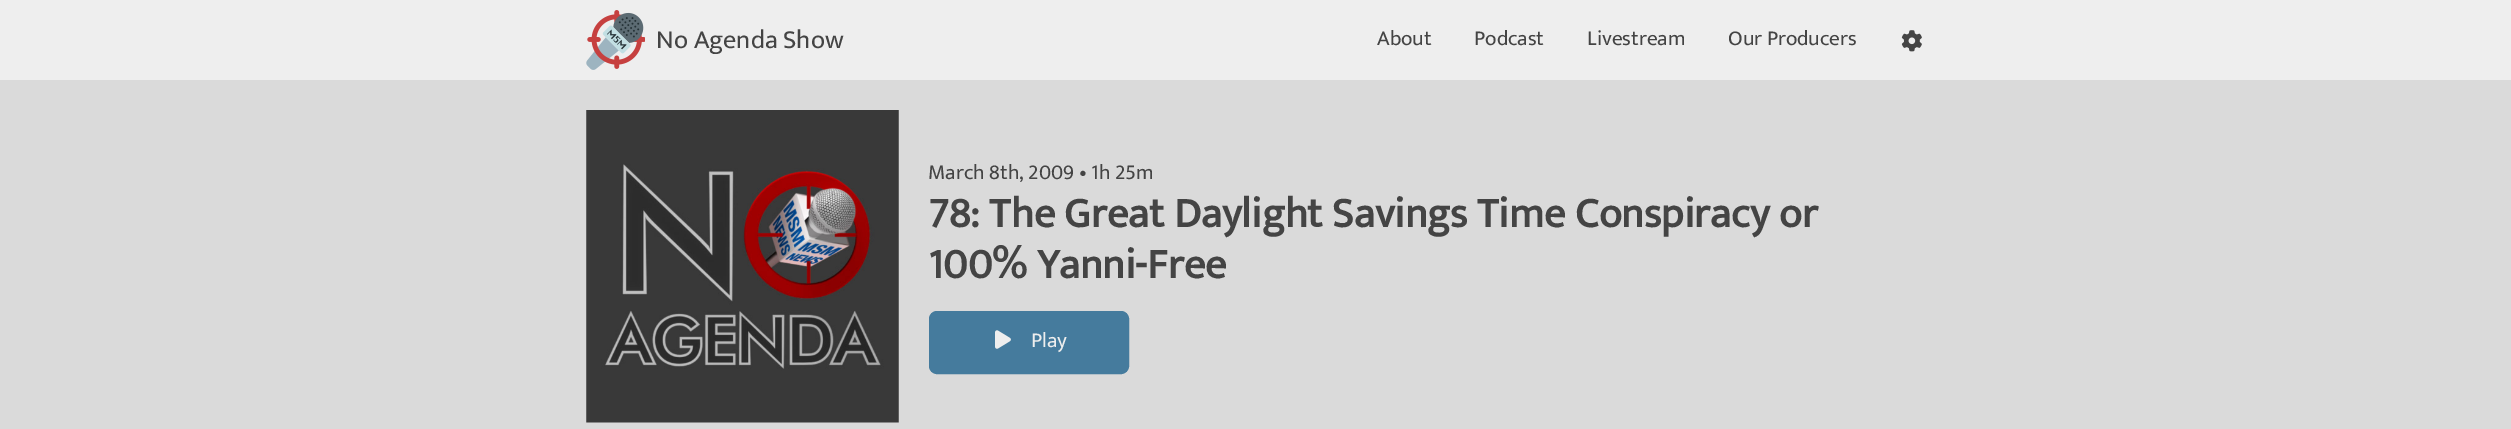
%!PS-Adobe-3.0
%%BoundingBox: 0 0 2511 429
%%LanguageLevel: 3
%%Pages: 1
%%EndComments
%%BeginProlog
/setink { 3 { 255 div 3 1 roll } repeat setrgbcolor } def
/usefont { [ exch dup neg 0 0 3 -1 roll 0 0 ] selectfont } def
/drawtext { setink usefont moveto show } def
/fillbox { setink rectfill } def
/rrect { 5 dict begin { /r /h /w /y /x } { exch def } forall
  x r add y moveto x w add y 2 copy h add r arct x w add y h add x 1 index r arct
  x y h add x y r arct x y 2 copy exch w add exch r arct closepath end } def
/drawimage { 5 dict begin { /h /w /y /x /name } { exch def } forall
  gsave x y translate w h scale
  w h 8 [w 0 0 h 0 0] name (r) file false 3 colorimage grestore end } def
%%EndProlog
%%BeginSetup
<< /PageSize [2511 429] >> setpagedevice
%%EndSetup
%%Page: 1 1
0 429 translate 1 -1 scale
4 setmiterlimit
0 0 2511 429 238 238 238 fillbox
(assets/img1.rgb) 586 10 59 60 drawimage
(No Agenda Show) 656 48 /Mukta-Regular 26.25 68 68 68 drawtext
(About) 1377 45 /Mukta-Regular 21.25 68 68 68 drawtext
(Podcast) 1474 45 /Mukta-Regular 21.25 68 68 68 drawtext
(Livestream) 1587 45 /Mukta-Regular 21.25 68 68 68 drawtext
(Our Producers) 1728 45 /Mukta-Regular 21.25 68 68 68 drawtext
(assets/img2.rgb) 1901 30 21 22 drawimage
0 80 2511 349 218 218 218 fillbox
(assets/img3.rgb) 586 110 313 313 drawimage
(March 8th, 2009 • 1h 25m) 928 179 /Mukta-Regular 21.25 68 68 68 drawtext
(78: The Great Daylight Savings Time Conspiracy or) 928 227 /Mukta-Bold 42.5 68 68 68 drawtext
(100% Yanni-Free) 928 278 /Mukta-Bold 42.5 68 68 68 drawtext
69 123 157 setink
929.5 311.5 199 62 7.5 rrect gsave fill grestore
stroke
(assets/img4.rgb) 995 330 16 19 drawimage
(Play) 1031 347 /Mukta-Regular 21.25 238 238 238 drawtext
showpage
%%EOF
